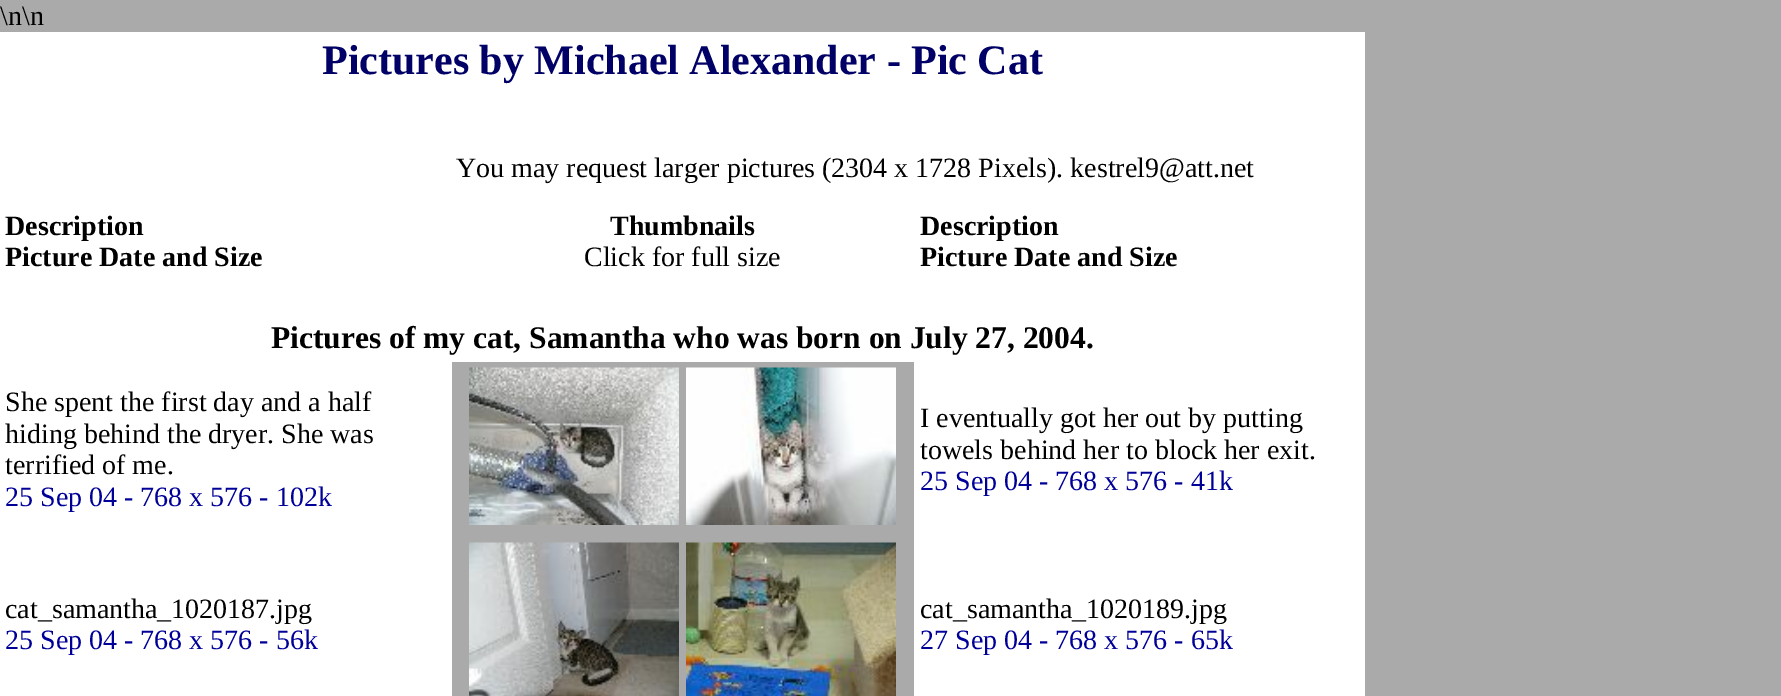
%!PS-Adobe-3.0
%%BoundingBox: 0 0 1781 696
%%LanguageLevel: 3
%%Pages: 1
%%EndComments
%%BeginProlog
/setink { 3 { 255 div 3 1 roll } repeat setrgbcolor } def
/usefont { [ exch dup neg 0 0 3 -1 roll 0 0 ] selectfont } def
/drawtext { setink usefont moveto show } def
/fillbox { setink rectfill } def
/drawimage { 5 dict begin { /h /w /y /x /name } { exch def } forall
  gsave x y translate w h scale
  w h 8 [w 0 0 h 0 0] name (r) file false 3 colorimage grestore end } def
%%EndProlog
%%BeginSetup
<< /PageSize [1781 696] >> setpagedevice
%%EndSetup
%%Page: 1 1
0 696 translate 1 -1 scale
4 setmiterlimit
0 0 1781 696 170 170 170 fillbox
(\\n\\n) 0 25 /LiberationSerif-Regular 28 0 0 0 drawtext
0 32 1365 664 255 255 255 fillbox
(Pictures by Michael Alexander - Pic Cat) 322 74 /LiberationSerif-Bold 42 0 0 102 drawtext
(You may request larger pictures \(2304 x 1728 Pixels\). kestrel9@att.net) 456 177 /LiberationSerif-Regular 28 0 0 0 drawtext
(Description) 5 235 /LiberationSerif-Bold 28 0 0 0 drawtext
(Picture Date and Size) 5 266 /LiberationSerif-Bold 28 0 0 0 drawtext
(Thumbnails) 610 235 /LiberationSerif-Bold 28 0 0 0 drawtext
(Click for full size) 584 266 /LiberationSerif-Regular 28 0 0 0 drawtext
(Description) 920 235 /LiberationSerif-Bold 28 0 0 0 drawtext
(Picture Date and Size) 920 266 /LiberationSerif-Bold 28 0 0 0 drawtext
(Pictures of my cat, Samantha who was born on July 27, 2004.) 271 348 /LiberationSerif-Bold 31.5 0 0 0 drawtext
(She spent the first day and a half) 5 411 /LiberationSerif-Regular 28 0 0 0 drawtext
(hiding behind the dryer. She was) 5 443 /LiberationSerif-Regular 28 0 0 0 drawtext
(terrified of me.) 5 474 /LiberationSerif-Regular 28 0 0 0 drawtext
(25 Sep 04 - 768 x 576 - 102k) 5 506 /LiberationSerif-Regular 28 0 0 153 drawtext
452 362 462 334 170 170 170 fillbox
(assets/img1.rgb) 469 367 210 158 drawimage
(assets/img2.rgb) 686 367 210 158 drawimage
(I eventually got her out by putting) 920 427 /LiberationSerif-Regular 28 0 0 0 drawtext
(towels behind her to block her exit.) 920 459 /LiberationSerif-Regular 28 0 0 0 drawtext
(25 Sep 04 - 768 x 576 - 41k) 920 490 /LiberationSerif-Regular 28 0 0 153 drawtext
(cat_samantha_1020187.jpg) 5 618 /LiberationSerif-Regular 28 0 0 0 drawtext
(25 Sep 04 - 768 x 576 - 56k) 5 649 /LiberationSerif-Regular 28 0 0 153 drawtext
(assets/img3.rgb) 469 542 210 154 drawimage
(assets/img4.rgb) 686 542 210 154 drawimage
(cat_samantha_1020189.jpg) 920 618 /LiberationSerif-Regular 28 0 0 0 drawtext
(27 Sep 04 - 768 x 576 - 65k) 920 649 /LiberationSerif-Regular 28 0 0 153 drawtext
showpage
%%EOF
